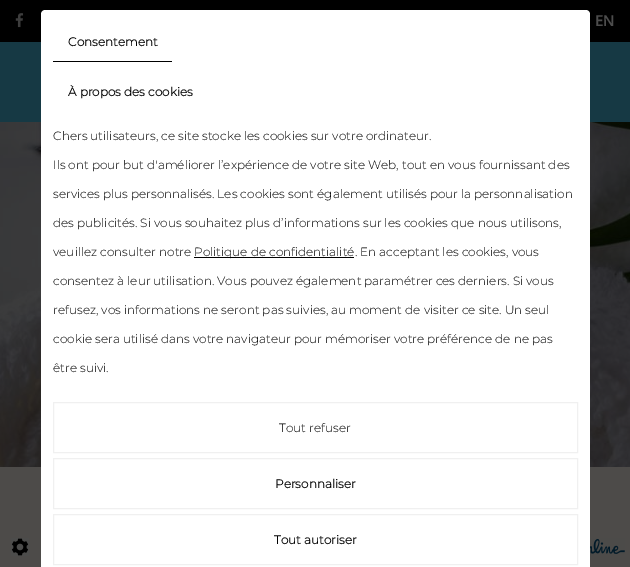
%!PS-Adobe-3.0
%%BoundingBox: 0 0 630 567
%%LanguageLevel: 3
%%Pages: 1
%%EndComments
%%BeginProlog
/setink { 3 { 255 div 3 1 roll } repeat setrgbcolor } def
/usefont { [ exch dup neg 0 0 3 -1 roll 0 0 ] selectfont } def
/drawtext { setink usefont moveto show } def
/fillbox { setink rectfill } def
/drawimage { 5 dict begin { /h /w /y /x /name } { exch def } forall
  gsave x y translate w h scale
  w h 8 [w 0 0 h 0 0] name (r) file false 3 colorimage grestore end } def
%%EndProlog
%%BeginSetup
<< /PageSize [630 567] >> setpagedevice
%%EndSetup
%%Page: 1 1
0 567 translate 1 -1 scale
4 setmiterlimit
0 0 630 567 77 75 73 fillbox
0 0 630 42 0 0 0 fillbox
(assets/img1.rgb) 15 13 9 15 drawimage
(EN) 595 26 /Oxygen-Bold 15 77 77 77 drawtext
0 42 630 80 22 57 68 fillbox
(assets/img2.rgb) 0 122 630 345 drawimage
255 255 255 setink
45 10 moveto 586 10 lineto 588 10 590 12 590 14 curveto 590 567 lineto 41 567 lineto 41 14 lineto 41 12 43 10 45 10 curveto closepath fill
53 61 119 1 0 0 0 fillbox
(Consentement) 68 46 /Montserrat-Bold 12 0 0 0 drawtext
(À propos des cookies) 68 96 /Montserrat-Bold 12 0 0 0 drawtext
(Chers utilisateurs, ce site stocke les cookies sur votre ordinateur.) 53 140 /Montserrat-Light 12 0 0 0 drawtext
(Ils ont pour but d'améliorer l’expérience de votre site Web, tout en vous fournissant des) 53 169 /Montserrat-Light 12 0 0 0 drawtext
(services plus personnalisés. Les cookies sont également utilisés pour la personnalisation) 53 198 /Montserrat-Light 12 0 0 0 drawtext
(des publicités. Si vous souhaitez plus d’informations sur les cookies que nous utilisons,) 53 227 /Montserrat-Light 12 0 0 0 drawtext
(veuillez consulter notre) 53 256 /Montserrat-Light 12 0 0 0 drawtext
194 257 160 1 0 0 0 fillbox
(Politique de confidentialité. En acceptant les cookies, vous) 194 256 /Montserrat-Light 12 0 0 0 drawtext
(consentez à leur utilisation. Vous pouvez également paramétrer ces derniers. Si vous) 53 285 /Montserrat-Light 12 0 0 0 drawtext
(refusez, vos informations ne seront pas suivies, au moment de visiter ce site. Un seul) 53 314 /Montserrat-Light 12 0 0 0 drawtext
(cookie sera utilisé dans votre navigateur pour mémoriser votre préférence de ne pas) 53 343 /Montserrat-Light 12 0 0 0 drawtext
(être suivi.) 53 372 /Montserrat-Light 12 0 0 0 drawtext
240 240 240 setink
53.5 402.5 524 50 rectstroke
(Tout refuser) 279 432 /Montserrat-Light 12 0 0 0 drawtext
240 240 240 setink
53.5 458.5 524 50 rectstroke
(Personnaliser) 275 488 /Montserrat-Bold 12 0 0 0 drawtext
240 240 240 setink
53.5 514.5 524 50 rectstroke
(Tout autoriser) 274 544 /Montserrat-Bold 12 0 0 0 drawtext
(assets/img3.rgb) 11 538 18 18 drawimage
(assets/img4.rgb) 590 538 35 16 drawimage
showpage
%%EOF
